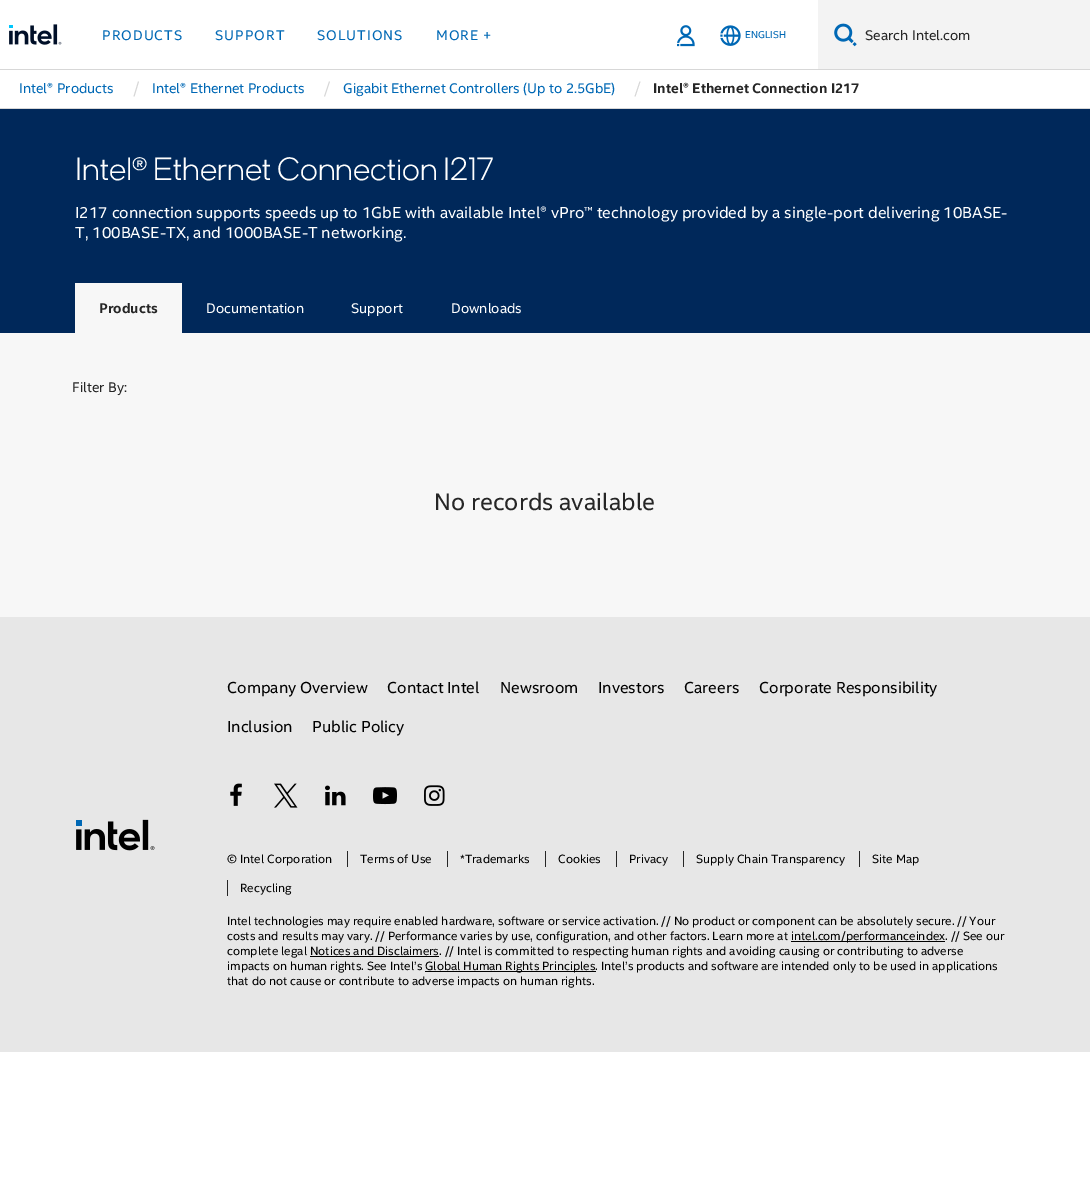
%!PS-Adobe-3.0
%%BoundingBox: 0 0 1090 1187
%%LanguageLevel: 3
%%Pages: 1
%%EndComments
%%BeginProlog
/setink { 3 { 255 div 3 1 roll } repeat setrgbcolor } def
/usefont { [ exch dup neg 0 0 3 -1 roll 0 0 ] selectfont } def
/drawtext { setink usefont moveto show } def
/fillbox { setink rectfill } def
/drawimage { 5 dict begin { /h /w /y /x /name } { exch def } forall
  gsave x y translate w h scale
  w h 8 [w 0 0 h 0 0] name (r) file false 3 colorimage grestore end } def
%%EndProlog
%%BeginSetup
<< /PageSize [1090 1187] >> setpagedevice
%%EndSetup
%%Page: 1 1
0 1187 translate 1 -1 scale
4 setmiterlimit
0 0 1090 1187 255 255 255 fillbox
0 69 1090 1 215 215 215 fillbox
(assets/img1.rgb) 9 24 53 21 drawimage
/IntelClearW-Regular 14 usefont
0 104 181 setink
102 40 moveto 1 0 (PRODUCTS) ashow
215 40 moveto 1 0 (SUPPORT) ashow
317 40 moveto 1 0 (SOLUTIONS) ashow
436 40 moveto 1 0 (MORE +) ashow
(assets/img2.rgb) 677 25 18 22 drawimage
(assets/img3.rgb) 720 25 21 21 drawimage
(ENGLISH) 745 38 /IntelClearW-Regular 10 0 104 181 drawtext
818 0 272 69 243 243 243 fillbox
(assets/img4.rgb) 834 23 23 24 drawimage
(Search Intel.com) 865 40 /IntelClearW-Regular 14 38 38 38 drawtext
0 108 1090 1 215 215 215 fillbox
(Intel® Products) 19 93 /IntelClearW-Regular 14 0 104 181 drawtext
215 215 215 setink
138 81.5 moveto 139 81.5 lineto 134.5 96.5 lineto 133.5 96.5 lineto closepath fill
(Intel® Ethernet Products) 152 93 /IntelClearW-Regular 14 0 104 181 drawtext
215 215 215 setink
329 81.5 moveto 330 81.5 lineto 325 96.5 lineto 324 96.5 lineto closepath fill
(Gigabit Ethernet Controllers \(Up to 2.5GbE\)) 343 93 /IntelClearW-Regular 14 0 104 181 drawtext
215 215 215 setink
639.5 81.5 moveto 640.5 81.5 lineto 635.5 96.5 lineto 634.5 96.5 lineto closepath fill
(Intel® Ethernet Connection I217) 653 93 /IntelClearW-Bold 14 38 38 38 drawtext
0 109 1090 224 0 40 90 fillbox
(Intel® Ethernet Connection I217) 75 180 /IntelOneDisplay-Light 32 255 255 255 drawtext
(I217 connection supports speeds up to 1GbE with available Intel® vPro™ technology provided by a single-port delivering 10BASE-) 75 218 /IntelClearW-Regular 16 255 255 255 drawtext
(T, 100BASE-TX, and 1000BASE-T networking.) 75 238 /IntelClearW-Regular 16 255 255 255 drawtext
75 283 107 50 247 247 247 fillbox
(Products) 99 313 /IntelClearW-Bold 14 38 38 38 drawtext
(Documentation) 206 313 /IntelClearW-Regular 14 255 255 255 drawtext
(Support) 351 313 /IntelClearW-Regular 14 255 255 255 drawtext
(Downloads) 451 313 /IntelClearW-Regular 14 255 255 255 drawtext
0 333 1090 284 247 247 247 fillbox
(Filter By:) 72 392 /IntelClearW-Regular 14 38 38 38 drawtext
(No records available) 434 510 /IntelClearW-Regular 24 38 38 38 drawtext
0 617 1090 435 231 231 231 fillbox
(assets/img5.rgb) 76 819 79 32 drawimage
(Company Overview) 227 693 /IntelClearW-Regular 16 0 0 0 drawtext
(Contact Intel) 387 693 /IntelClearW-Regular 16 0 0 0 drawtext
(Newsroom) 500 693 /IntelClearW-Regular 16 0 0 0 drawtext
(Investors) 598 693 /IntelClearW-Regular 16 0 0 0 drawtext
(Careers) 684 693 /IntelClearW-Regular 16 0 0 0 drawtext
(Corporate Responsibility) 759 693 /IntelClearW-Regular 16 0 0 0 drawtext
(Inclusion) 227 732 /IntelClearW-Regular 16 0 0 0 drawtext
(Public Policy) 312 732 /IntelClearW-Regular 16 0 0 0 drawtext
(assets/img6.rgb) 230 783 12 23 drawimage
(assets/img7.rgb) 274 783 24 25 drawimage
(assets/img8.rgb) 325 785 21 21 drawimage
(assets/img9.rgb) 373 787 24 18 drawimage
(assets/img10.rgb) 424 785 21 21 drawimage
(© Intel Corporation) 227 863 /IntelClearW-Regular 12 0 0 0 drawtext
(Terms of Use) 360 863 /IntelClearW-Regular 12 0 0 0 drawtext
347 851 1 16 38 38 38 fillbox
(*Trademarks) 460 863 /IntelClearW-Regular 12 0 0 0 drawtext
447 851 1 16 38 38 38 fillbox
(Cookies) 558 863 /IntelClearW-Regular 12 0 0 0 drawtext
545 851 1 16 38 38 38 fillbox
(Privacy) 629 863 /IntelClearW-Regular 12 0 0 0 drawtext
616 851 1 16 38 38 38 fillbox
(Supply Chain Transparency) 696 863 /IntelClearW-Regular 12 0 0 0 drawtext
683 851 1 16 38 38 38 fillbox
(Site Map) 872 863 /IntelClearW-Regular 12 0 0 0 drawtext
859 851 1 16 38 38 38 fillbox
(Recycling) 240 892 /IntelClearW-Regular 12 0 0 0 drawtext
227 880 1 16 38 38 38 fillbox
(Intel technologies may require enabled hardware, software or service activation. // No product or component can be absolutely secure. // Your) 227 925 /IntelClearW-Regular 12 0 0 0 drawtext
(costs and results may vary. // Performance varies by use, configuration, and other factors. Learn more at) 227 940 /IntelClearW-Regular 12 0 0 0 drawtext
791 941 154 1 0 0 0 fillbox
(intel.com/performanceindex. // See our) 791 940 /IntelClearW-Regular 12 0 0 0 drawtext
(complete legal Notices and Disclaimers. // Intel is committed to respecting human rights and avoiding causing or contributing to adverse) 227 955 /IntelClearW-Regular 12 0 0 0 drawtext
310 956 129 1 0 0 0 fillbox
(impacts on human rights. See Intel’s) 227 970 /IntelClearW-Regular 12 0 0 0 drawtext
425 971 171 1 0 0 0 fillbox
(Global Human Rights Principles. Intel’s products and software are intended only to be used in applications) 425 970 /IntelClearW-Regular 12 0 0 0 drawtext
(that do not cause or contribute to adverse impacts on human rights.) 227 985 /IntelClearW-Regular 12 0 0 0 drawtext
showpage
%%EOF
